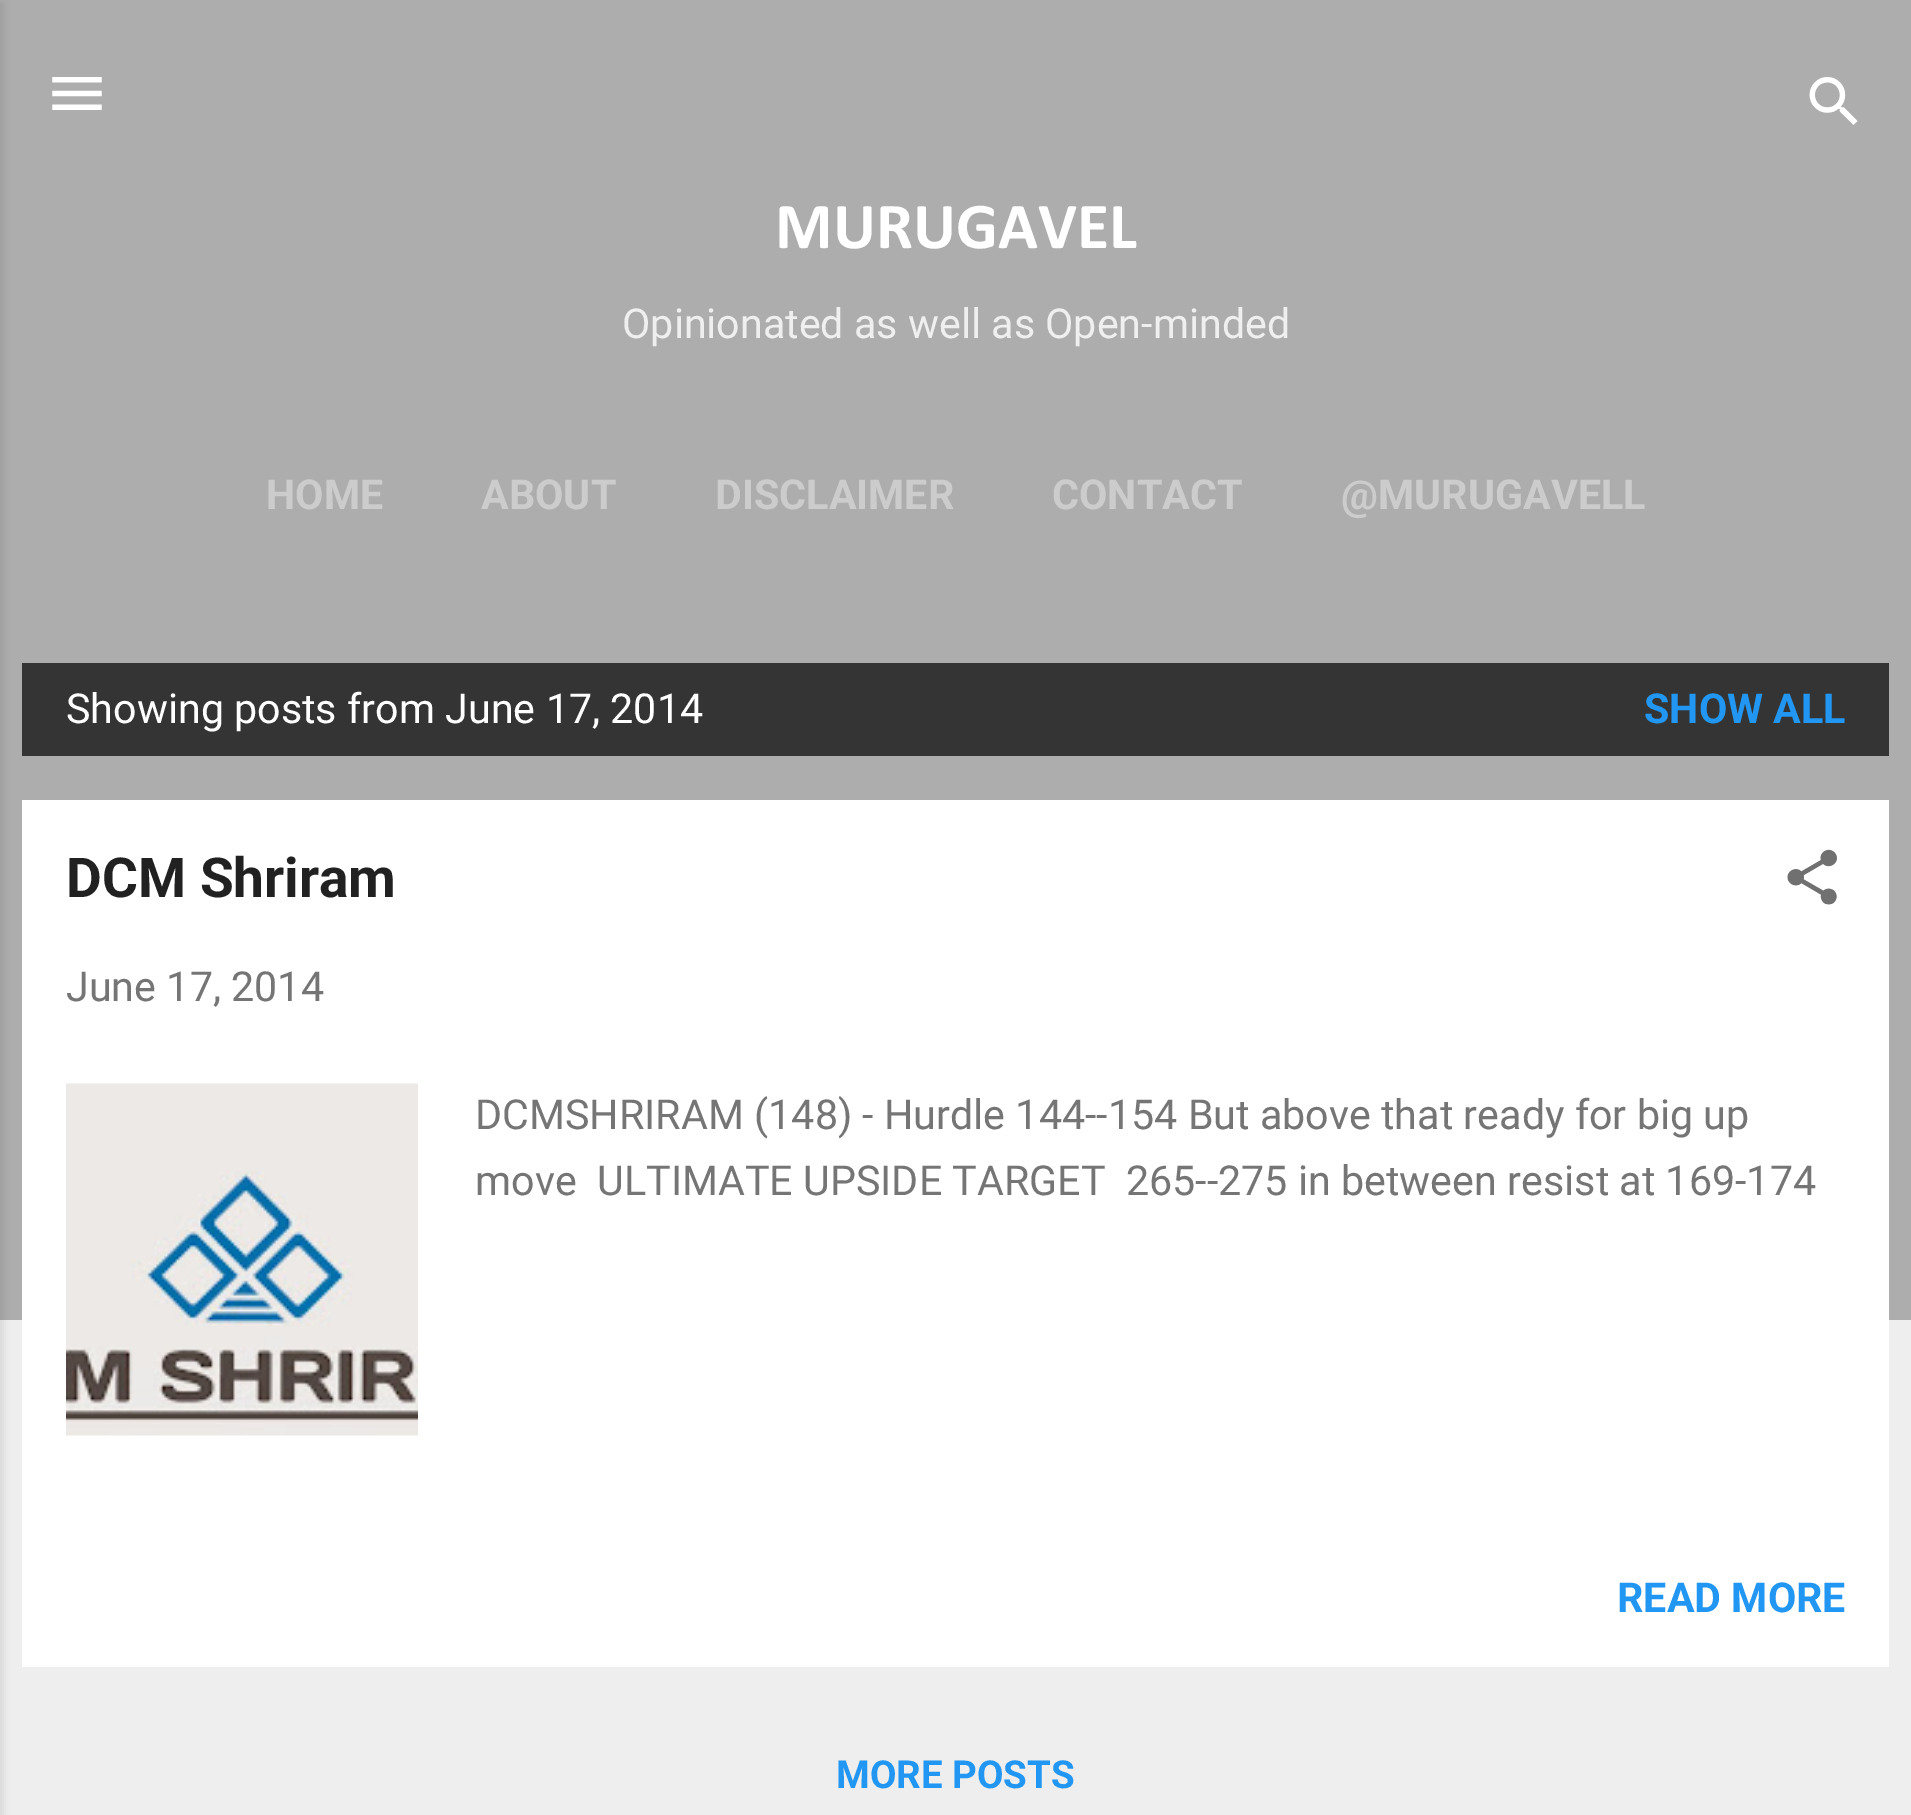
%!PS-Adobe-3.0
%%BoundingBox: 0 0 1911 1815
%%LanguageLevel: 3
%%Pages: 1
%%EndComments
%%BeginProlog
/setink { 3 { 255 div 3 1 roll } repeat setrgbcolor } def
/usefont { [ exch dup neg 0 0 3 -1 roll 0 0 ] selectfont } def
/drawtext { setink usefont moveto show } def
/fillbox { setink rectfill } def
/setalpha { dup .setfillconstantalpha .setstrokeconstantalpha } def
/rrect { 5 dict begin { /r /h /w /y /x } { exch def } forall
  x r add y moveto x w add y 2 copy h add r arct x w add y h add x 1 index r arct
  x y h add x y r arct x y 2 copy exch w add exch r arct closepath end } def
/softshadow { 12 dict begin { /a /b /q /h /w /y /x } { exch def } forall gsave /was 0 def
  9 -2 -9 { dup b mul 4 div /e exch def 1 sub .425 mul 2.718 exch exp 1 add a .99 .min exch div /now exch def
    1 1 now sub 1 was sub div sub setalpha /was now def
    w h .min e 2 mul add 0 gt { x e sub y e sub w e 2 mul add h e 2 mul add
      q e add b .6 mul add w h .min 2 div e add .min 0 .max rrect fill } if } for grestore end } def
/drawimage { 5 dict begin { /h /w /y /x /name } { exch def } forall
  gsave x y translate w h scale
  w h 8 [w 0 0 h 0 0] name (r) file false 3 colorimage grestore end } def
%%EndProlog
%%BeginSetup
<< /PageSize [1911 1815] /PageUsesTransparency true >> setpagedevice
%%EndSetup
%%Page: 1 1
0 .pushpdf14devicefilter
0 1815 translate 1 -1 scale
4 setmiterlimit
0 0 1911 1815 238 238 238 fillbox
0 0 1911 1320 173 173 173 fillbox
0 0 0 setink
-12 3 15 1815 0 4 0.1 softshadow
(assets/img1.rgb) 52 77 50 33 drawimage
(assets/img2.rgb) 1809 77 49 48 drawimage
(MURUGAVEL) 775 248 /Calibri-Bold 66 255 255 255 drawtext
(Opinionated as well as Open-minded) 622 338 /Roboto-Regular 41.25 239 239 239 drawtext
(HOME) 266 509 /Roboto-Bold 41.25 204 204 204 drawtext
(ABOUT) 481 509 /Roboto-Bold 41.25 204 204 204 drawtext
(DISCLAIMER) 715 509 /Roboto-Bold 41.25 204 204 204 drawtext
(CONTACT) 1052 509 /Roboto-Bold 41.25 204 204 204 drawtext
(@MURUGAVELL) 1341 509 /Roboto-Bold 41.25 204 204 204 drawtext
22 663 1867 93 52 52 52 fillbox
(Showing posts from June 17, 2014) 66 723 /Roboto-Regular 41.25 255 255 255 drawtext
(SHOW ALL) 1644 723 /Roboto-Bold 41.25 33 150 243 drawtext
22 800 1867 867 255 255 255 fillbox
(DCM Shriram) 66 897 /Roboto-Bold 55 33 33 33 drawtext
(assets/img3.rgb) 1787 849 50 56 drawimage
(June 17, 2014) 66 1001 /Roboto-Regular 41.25 117 117 117 drawtext
(assets/img4.rgb) 66 1083 352 353 drawimage
(DCMSHRIRAM \(148\) - Hurdle 144--154 But above that ready for big up) 475 1129 /Roboto-Regular 41.25 117 117 117 drawtext
(move) 475 1195 /Roboto-Regular 41.25 117 117 117 drawtext
(ULTIMATE UPSIDE TARGET  265--275 in between resist at 169-174) 597 1195 /Roboto-Regular 41.25 117 117 117 drawtext
(READ MORE) 1617 1612 /Roboto-Bold 41.25 33 150 243 drawtext
(MORE POSTS) 836 1788 /Roboto-Bold 38.5 33 150 243 drawtext
.poppdf14devicefilter showpage
%%EOF
